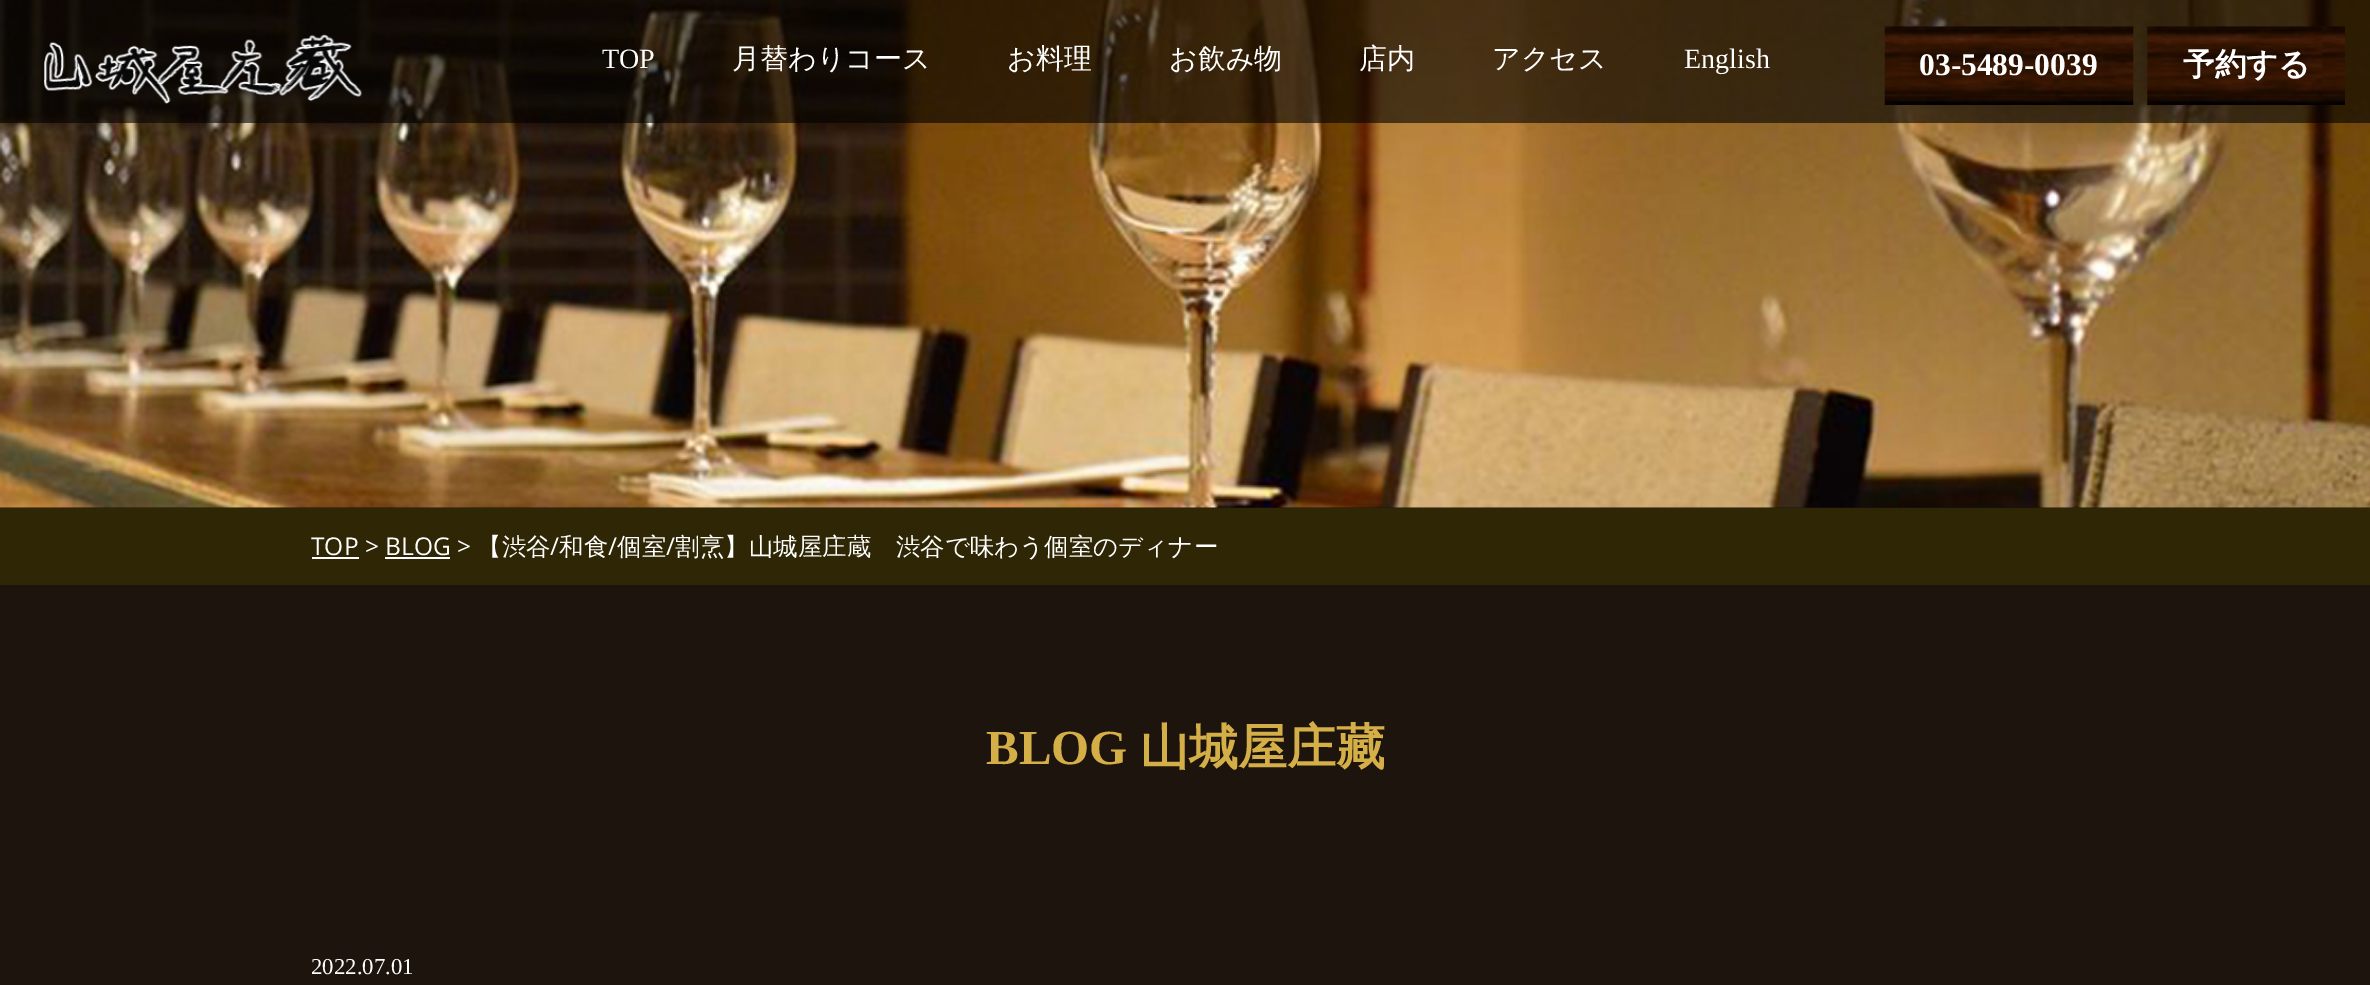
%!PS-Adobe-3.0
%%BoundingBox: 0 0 2370 985
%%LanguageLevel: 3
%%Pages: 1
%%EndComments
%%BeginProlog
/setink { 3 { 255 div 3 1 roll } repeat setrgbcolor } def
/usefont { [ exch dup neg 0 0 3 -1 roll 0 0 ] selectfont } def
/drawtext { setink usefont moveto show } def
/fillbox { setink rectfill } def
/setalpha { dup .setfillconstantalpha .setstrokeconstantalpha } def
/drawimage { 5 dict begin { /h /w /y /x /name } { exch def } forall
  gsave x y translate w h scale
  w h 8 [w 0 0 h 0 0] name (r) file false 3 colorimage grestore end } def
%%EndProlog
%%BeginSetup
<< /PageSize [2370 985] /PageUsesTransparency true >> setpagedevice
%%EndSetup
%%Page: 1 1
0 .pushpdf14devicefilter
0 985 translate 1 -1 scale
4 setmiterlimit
0 0 2370 985 29 20 13 fillbox
(assets/img4.rgb) 0 0 2370 508 drawimage
0.6 setalpha
0 0 2370 123 0 0 0 fillbox
1 setalpha
(assets/img1.rgb) 44 34 318 70 drawimage
(TOP) 602 68 /LiberationSerif-Regular 28 255 255 255 drawtext
(月替わりコース) 732 68 /WenQuanYiZenHei-Medium 28 255 255 255 drawtext
(お料理) 1007 68 /WenQuanYiZenHei-Medium 28 255 255 255 drawtext
(お飲み物) 1169 68 /WenQuanYiZenHei-Medium 28 255 255 255 drawtext
(店内) 1359 68 /WenQuanYiZenHei-Medium 28 255 255 255 drawtext
(アクセス) 1492 68 /WenQuanYiZenHei-Medium 28 255 255 255 drawtext
(English) 1684 68 /LiberationSerif-Regular 28 255 255 255 drawtext
(assets/img2.rgb) 1884 26 250 79 drawimage
(03-5489-0039) 1919 75 /LiberationSerif-Bold 31.5 255 255 255 drawtext
(assets/img3.rgb) 2147 26 198 79 drawimage
(予約する) 2183 75 /WenQuanYiZenHei-Bold 31.5 255 255 255 drawtext
0 508 2370 77 46 38 4 fillbox
(TOP > BLOG >) 311 555 /OpenSans-Regular 24.5 255 255 255 drawtext
312 557 47 2 255 255 255 fillbox
(【渋谷) 477 555 /WenQuanYiZenHei-Medium 24.5 255 255 255 drawtext
(/) 550 555 /OpenSans-Regular 24.5 255 255 255 drawtext
(和食) 559 555 /WenQuanYiZenHei-Medium 24.5 255 255 255 drawtext
(/) 608 555 /OpenSans-Regular 24.5 255 255 255 drawtext
(個室) 617 555 /WenQuanYiZenHei-Medium 24.5 255 255 255 drawtext
(/) 666 555 /OpenSans-Regular 24.5 255 255 255 drawtext
(割烹】山城屋庄蔵　渋谷で味わう個室のディナー) 675 555 /WenQuanYiZenHei-Medium 24.5 255 255 255 drawtext
385 557 65 2 255 255 255 fillbox
(BLOG) 986 764 /LiberationSerif-Bold 49 212 175 72 drawtext
(山城屋庄藏) 1140 764 /WenQuanYiZenHei-Bold 49 212 175 72 drawtext
(2022.07.01) 311 974 /LiberationSerif-Regular 22.75 255 255 255 drawtext
.poppdf14devicefilter showpage
%%EOF
